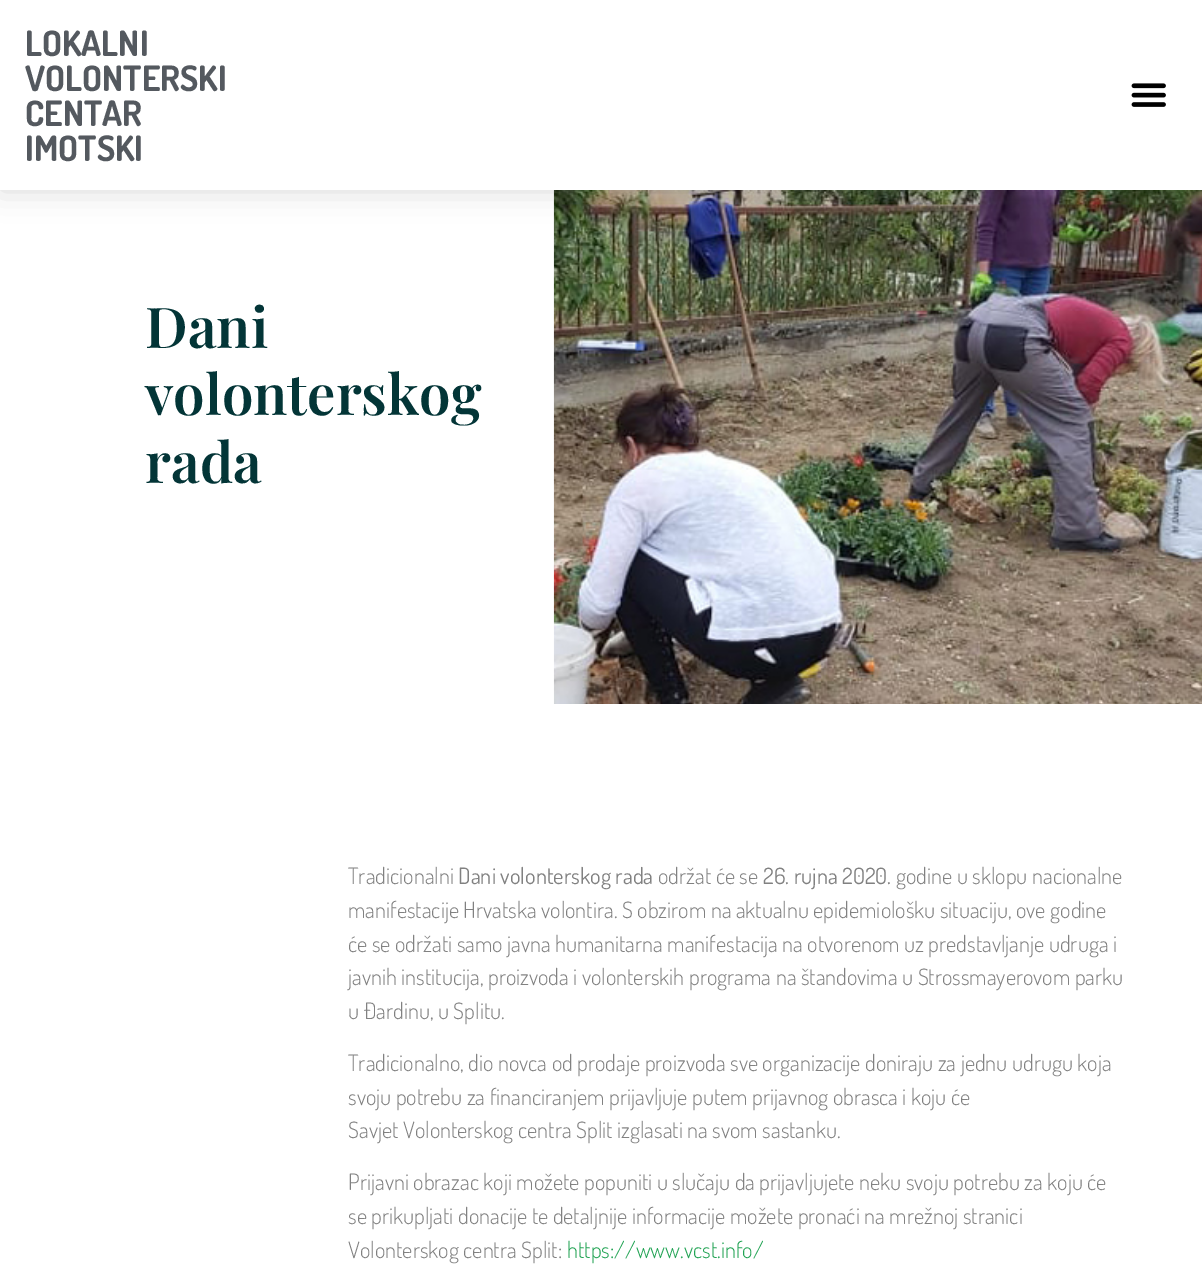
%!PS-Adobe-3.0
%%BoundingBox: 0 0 1202 1274
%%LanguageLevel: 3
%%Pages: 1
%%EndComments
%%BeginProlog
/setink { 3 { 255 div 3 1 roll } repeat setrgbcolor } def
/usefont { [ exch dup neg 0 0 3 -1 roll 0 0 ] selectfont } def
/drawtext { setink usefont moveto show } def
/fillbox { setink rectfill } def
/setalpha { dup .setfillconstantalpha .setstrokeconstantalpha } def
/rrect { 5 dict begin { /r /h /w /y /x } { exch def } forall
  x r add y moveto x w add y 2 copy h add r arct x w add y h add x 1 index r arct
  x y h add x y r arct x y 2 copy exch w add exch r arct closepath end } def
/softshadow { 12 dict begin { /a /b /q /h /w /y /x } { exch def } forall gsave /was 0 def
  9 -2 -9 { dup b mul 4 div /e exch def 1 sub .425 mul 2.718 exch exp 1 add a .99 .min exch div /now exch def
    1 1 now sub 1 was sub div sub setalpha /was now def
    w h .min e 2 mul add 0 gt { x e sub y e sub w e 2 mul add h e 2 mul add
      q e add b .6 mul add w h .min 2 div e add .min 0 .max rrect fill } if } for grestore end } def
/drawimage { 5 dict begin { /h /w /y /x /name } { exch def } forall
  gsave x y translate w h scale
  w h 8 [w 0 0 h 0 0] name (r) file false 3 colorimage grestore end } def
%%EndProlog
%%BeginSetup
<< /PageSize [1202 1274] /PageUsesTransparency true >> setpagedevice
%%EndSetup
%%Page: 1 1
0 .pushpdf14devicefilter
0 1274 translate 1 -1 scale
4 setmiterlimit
0 0 1202 1274 255 255 255 fillbox
(assets/img2.rgb) 553 190 649 514 drawimage
0 0 0 setink
0 0 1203 190 0 15 0.15 softshadow
0 0 1202 190 255 255 255 fillbox
(LOKALNI) 25 56 /Dosis-Bold 35 84 89 95 drawtext
(VOLONTERSKI) 25 91 /Dosis-Bold 35 84 89 95 drawtext
(CENTAR) 25 126 /Dosis-Bold 35 84 89 95 drawtext
(IMOTSKI) 25 161 /Dosis-Bold 35 84 89 95 drawtext
(assets/img1.rgb) 1131 83 35 24 drawimage
(Dani) 145 348 /PlayfairDisplay-SemiBold 56.25 3 53 55 drawtext
(volonterskog) 145 415 /PlayfairDisplay-SemiBold 56.25 3 53 55 drawtext
(rada) 145 483 /PlayfairDisplay-SemiBold 56.25 3 53 55 drawtext
(Tradicionalni) 348 884 /Dosis-Light 22.5 129 129 129 drawtext
(Dani volonterskog rada) 458 884 /Dosis-Regular 22.5 129 129 129 drawtext
(održat će se) 658 884 /Dosis-Light 22.5 129 129 129 drawtext
(26. rujna 2020.) 763 884 /Dosis-Regular 22.5 129 129 129 drawtext
(godine u sklopu nacionalne) 896 884 /Dosis-Light 22.5 129 129 129 drawtext
(manifestacije Hrvatska volontira. S obzirom na aktualnu epidemiološku situaciju, ove godine) 348 918 /Dosis-Light 22.5 129 129 129 drawtext
(će se održati samo javna humanitarna manifestacija na otvorenom uz predstavljanje udruga i) 348 952 /Dosis-Light 22.5 129 129 129 drawtext
(javnih institucija, proizvoda i volonterskih programa na štandovima u Strossmayerovom parku) 348 985 /Dosis-Light 22.5 129 129 129 drawtext
(u Đardinu, u Splitu.) 348 1019 /Dosis-Light 22.5 129 129 129 drawtext
(Tradicionalno, dio novca od prodaje proizvoda sve organizacije doniraju za jednu udrugu koja) 348 1071 /Dosis-Light 22.5 129 129 129 drawtext
(svoju potrebu za financiranjem prijavljuje putem prijavnog obrasca i koju će) 348 1105 /Dosis-Light 22.5 129 129 129 drawtext
(Savjet Volonterskog centra Split izglasati na svom sastanku.) 348 1138 /Dosis-Light 22.5 129 129 129 drawtext
(Prijavni obrazac koji možete popuniti u slučaju da prijavljujete neku svoju potrebu za koju će) 348 1190 /Dosis-Light 22.5 129 129 129 drawtext
(se prikupljati donacije te detaljnije informacije možete pronaći na mrežnoj stranici) 348 1224 /Dosis-Light 22.5 129 129 129 drawtext
(Volonterskog centra Split:) 348 1258 /Dosis-Light 22.5 129 129 129 drawtext
(https://www.vcst.info/) 567 1258 /Dosis-Light 22.5 35 164 85 drawtext
.poppdf14devicefilter showpage
%%EOF
